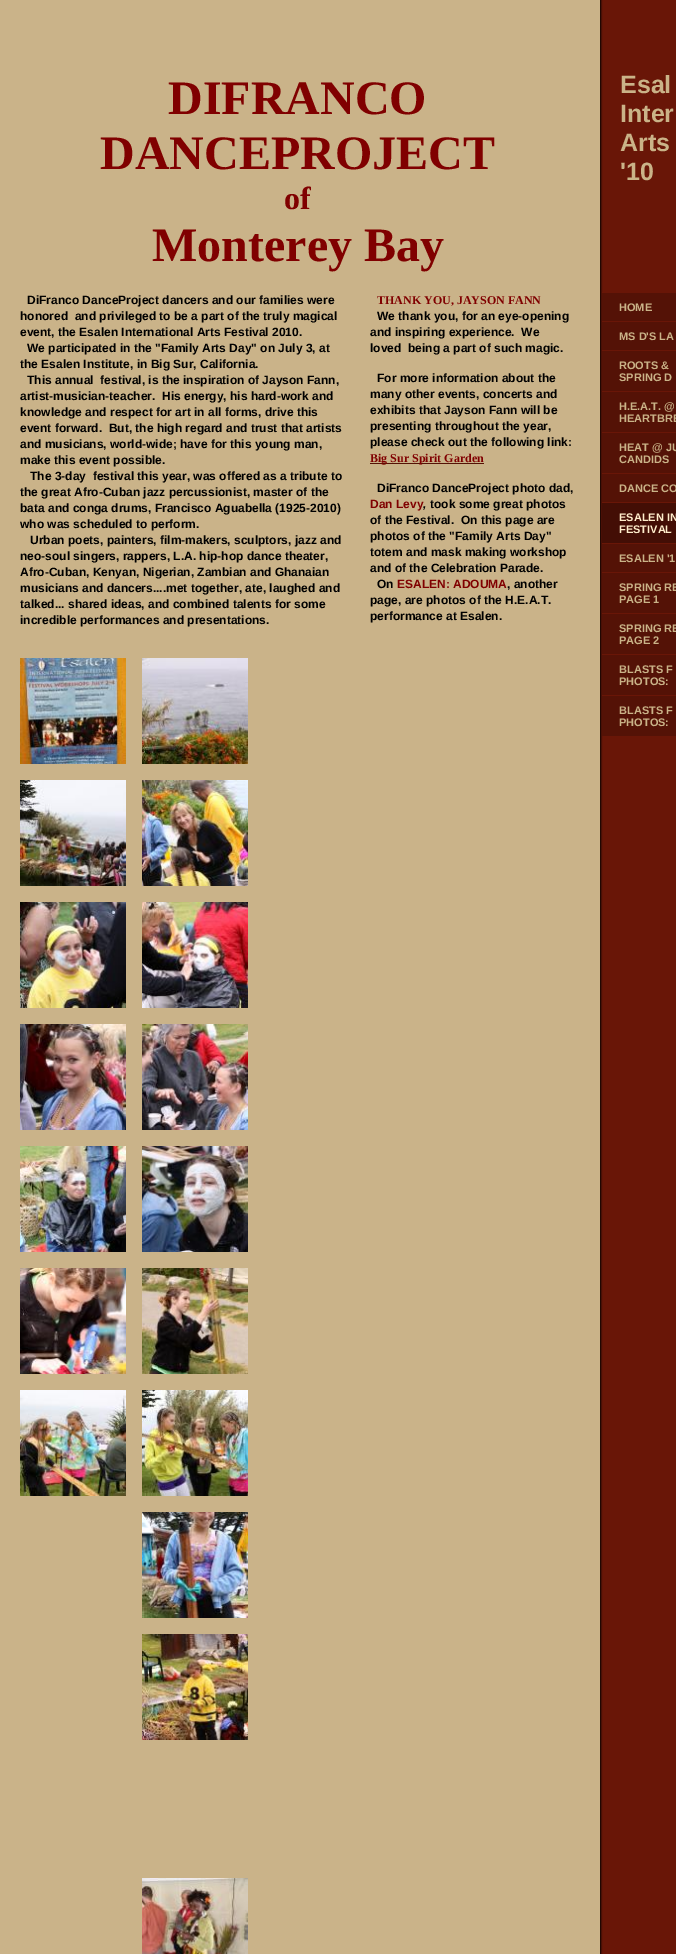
%!PS-Adobe-3.0
%%BoundingBox: 0 0 676 1954
%%LanguageLevel: 3
%%Pages: 1
%%EndComments
%%BeginProlog
/setink { 3 { 255 div 3 1 roll } repeat setrgbcolor } def
/usefont { [ exch dup neg 0 0 3 -1 roll 0 0 ] selectfont } def
/drawtext { setink usefont moveto show } def
/fillbox { setink rectfill } def
/drawimage { 5 dict begin { /h /w /y /x /name } { exch def } forall
  gsave x y translate w h scale
  w h 8 [w 0 0 h 0 0] name (r) file false 3 colorimage grestore end } def
%%EndProlog
%%BeginSetup
<< /PageSize [676 1954] >> setpagedevice
%%EndSetup
%%Page: 1 1
0 1954 translate 1 -1 scale
4 setmiterlimit
0 0 676 1954 202 179 137 fillbox
(assets/img1.rgb) 600 0 76 1954 drawimage
(Esal) 620 93 /LiberationSans-Bold 25 202 179 136 drawtext
(Inter) 620 122 /LiberationSans-Bold 25 202 179 136 drawtext
(Arts) 620 151 /LiberationSans-Bold 25 202 179 136 drawtext
('10) 620 180 /LiberationSans-Bold 25 202 179 136 drawtext
(DiFranco DanceProject dancers and our families were) 27 304 /LiberationSans-Bold 12 0 0 0 drawtext
(honored  and privileged to be a part of the truly magical) 20 320 /LiberationSans-Bold 12 0 0 0 drawtext
(event, the Esalen International Arts Festival 2010.) 20 336 /LiberationSans-Bold 12 0 0 0 drawtext
(We participated in the "Family Arts Day" on July 3, at) 27 352 /LiberationSans-Bold 12 0 0 0 drawtext
(the Esalen Institute, in Big Sur, California.) 20 368 /LiberationSans-Bold 12 0 0 0 drawtext
(This annual  festival, is the inspiration of Jayson Fann,) 27 384 /LiberationSans-Bold 12 0 0 0 drawtext
(artist-musician-teacher.  His energy, his hard-work and) 20 400 /LiberationSans-Bold 12 0 0 0 drawtext
(knowledge and respect for art in all forms, drive this) 20 416 /LiberationSans-Bold 12 0 0 0 drawtext
(event forward.  But, the high regard and trust that artists) 20 432 /LiberationSans-Bold 12 0 0 0 drawtext
(and musicians, world-wide; have for this young man,) 20 448 /LiberationSans-Bold 12 0 0 0 drawtext
(make this event possible.) 20 464 /LiberationSans-Bold 12 0 0 0 drawtext
(The 3-day  festival this year, was offered as a tribute to) 30 480 /LiberationSans-Bold 12 0 0 0 drawtext
(the great Afro-Cuban jazz percussionist, master of the) 20 496 /LiberationSans-Bold 12 0 0 0 drawtext
(bata and conga drums, Francisco Aguabella \(1925-2010\)) 20 512 /LiberationSans-Bold 12 0 0 0 drawtext
(who was scheduled to perform.) 20 528 /LiberationSans-Bold 12 0 0 0 drawtext
(Urban poets, painters, film-makers, sculptors, jazz and) 30 544 /LiberationSans-Bold 12 0 0 0 drawtext
(neo-soul singers, rappers, L.A. hip-hop dance theater,) 20 560 /LiberationSans-Bold 12 0 0 0 drawtext
(Afro-Cuban, Kenyan, Nigerian, Zambian and Ghanaian) 20 576 /LiberationSans-Bold 12 0 0 0 drawtext
(musicians and dancers....met together, ate, laughed and) 20 592 /LiberationSans-Bold 12 0 0 0 drawtext
(talked... shared ideas, and combined talents for some) 20 608 /LiberationSans-Bold 12 0 0 0 drawtext
(incredible performances and presentations.) 20 624 /LiberationSans-Bold 12 0 0 0 drawtext
(assets/img2.rgb) 20 658 106 106 drawimage
(assets/img3.rgb) 142 658 106 106 drawimage
(assets/img4.rgb) 20 780 106 106 drawimage
(assets/img5.rgb) 142 780 106 106 drawimage
(assets/img6.rgb) 20 902 106 106 drawimage
(assets/img7.rgb) 142 902 106 106 drawimage
(assets/img8.rgb) 20 1024 106 106 drawimage
(assets/img9.rgb) 142 1024 106 106 drawimage
(assets/img10.rgb) 20 1146 106 106 drawimage
(assets/img11.rgb) 142 1146 106 106 drawimage
(assets/img12.rgb) 20 1268 106 106 drawimage
(assets/img13.rgb) 142 1268 106 106 drawimage
(assets/img14.rgb) 20 1390 106 106 drawimage
(assets/img15.rgb) 142 1390 106 106 drawimage
(assets/img16.rgb) 142 1512 106 106 drawimage
(assets/img17.rgb) 142 1634 106 106 drawimage
(assets/img18.rgb) 142 1878 106 76 drawimage
(THANK YOU, JAYSON FANN) 377 304 /LiberationSerif-Bold 12 128 0 0 drawtext
(We thank you, for an eye-opening) 377 320 /LiberationSans-Bold 12 0 0 0 drawtext
(and inspiring experience.  We) 370 336 /LiberationSans-Bold 12 0 0 0 drawtext
(loved  being a part of such magic.) 370 352 /LiberationSans-Bold 12 0 0 0 drawtext
(For more information about the) 377 382 /LiberationSans-Bold 12 0 0 0 drawtext
(many other events, concerts and) 370 398 /LiberationSans-Bold 12 0 0 0 drawtext
(exhibits that Jayson Fann will be) 370 414 /LiberationSans-Bold 12 0 0 0 drawtext
(presenting throughout the year,) 370 430 /LiberationSans-Bold 12 0 0 0 drawtext
(please check out the following link:) 370 446 /LiberationSans-Bold 12 0 0 0 drawtext
370 463 114 1 84 18 6 fillbox
(Big Sur Spirit Garden) 370 462 /LiberationSerif-Bold 12 128 0 0 drawtext
(DiFranco DanceProject photo dad,) 377 492 /LiberationSans-Bold 12 0 0 0 drawtext
(Dan Levy) 370 508 /LiberationSans-Bold 12 128 0 0 drawtext
(,) 423 508 /LiberationSans-BoldItalic 12 0 0 0 drawtext
(took some great photos) 430 508 /LiberationSans-Bold 12 0 0 0 drawtext
(of the Festival.  On this page are) 370 524 /LiberationSans-Bold 12 0 0 0 drawtext
(photos of the "Family Arts Day") 370 540 /LiberationSans-Bold 12 0 0 0 drawtext
(totem and mask making workshop) 370 556 /LiberationSans-Bold 12 0 0 0 drawtext
(and of the Celebration Parade.) 370 572 /LiberationSans-Bold 12 0 0 0 drawtext
(On) 377 588 /LiberationSans-Bold 12 0 0 0 drawtext
(ESALEN: ADOUMA) 397 588 /LiberationSans-Bold 12 128 0 0 drawtext
(, another) 507 588 /LiberationSans-Bold 12 0 0 0 drawtext
(page, are photos of the H.E.A.T.) 370 604 /LiberationSans-Bold 12 0 0 0 drawtext
(performance at Esalen.) 370 620 /LiberationSans-Bold 12 0 0 0 drawtext
602 293 74 28 84 18 6 fillbox
602 292 1 1 105 22 7 fillbox
(HOME) 619 311 /LiberationSans-Bold 11 202 179 136 drawtext
602 322 74 28 84 18 6 fillbox
602 321 1 1 105 22 7 fillbox
(MS D'S LA) 619 340 /LiberationSans-Bold 11 202 179 136 drawtext
602 351 74 40 84 18 6 fillbox
602 350 1 1 105 22 7 fillbox
(ROOTS &) 619 369 /LiberationSans-Bold 11 202 179 136 drawtext
(SPRING D) 619 381 /LiberationSans-Bold 11 202 179 136 drawtext
602 392 74 40 84 18 6 fillbox
602 391 1 1 105 22 7 fillbox
(H.E.A.T. @) 619 410 /LiberationSans-Bold 11 202 179 136 drawtext
(HEARTBRE) 619 422 /LiberationSans-Bold 11 202 179 136 drawtext
602 433 74 40 84 18 6 fillbox
602 432 1 1 105 22 7 fillbox
(HEAT @ JU) 619 451 /LiberationSans-Bold 11 202 179 136 drawtext
(CANDIDS) 619 463 /LiberationSans-Bold 11 202 179 136 drawtext
602 474 74 28 84 18 6 fillbox
602 473 1 1 105 22 7 fillbox
(DANCE CO) 619 492 /LiberationSans-Bold 11 202 179 136 drawtext
602 503 74 40 67 14 5 fillbox
602 502 1 1 105 22 7 fillbox
(ESALEN IN) 619 521 /LiberationSans-Bold 11 255 237 203 drawtext
(FESTIVAL) 619 533 /LiberationSans-Bold 11 255 237 203 drawtext
602 544 74 28 84 18 6 fillbox
602 543 1 1 105 22 7 fillbox
(ESALEN '1) 619 562 /LiberationSans-Bold 11 202 179 136 drawtext
602 573 74 40 84 18 6 fillbox
602 572 1 1 105 22 7 fillbox
(SPRING RE) 619 591 /LiberationSans-Bold 11 202 179 136 drawtext
(PAGE 1) 619 603 /LiberationSans-Bold 11 202 179 136 drawtext
602 614 74 40 84 18 6 fillbox
602 613 1 1 105 22 7 fillbox
(SPRING RE) 619 632 /LiberationSans-Bold 11 202 179 136 drawtext
(PAGE 2) 619 644 /LiberationSans-Bold 11 202 179 136 drawtext
602 655 74 40 84 18 6 fillbox
602 654 1 1 105 22 7 fillbox
(BLASTS F) 619 673 /LiberationSans-Bold 11 202 179 136 drawtext
(PHOTOS:) 619 685 /LiberationSans-Bold 11 202 179 136 drawtext
602 696 74 40 84 18 6 fillbox
602 695 1 1 105 22 7 fillbox
(BLASTS F) 619 714 /LiberationSans-Bold 11 202 179 136 drawtext
(PHOTOS:) 619 726 /LiberationSans-Bold 11 202 179 136 drawtext
(DIFRANCO) 168 114 /LiberationSerif-Bold 48 128 0 0 drawtext
(DANCEPROJECT) 100 169 /LiberationSerif-Bold 48 128 0 0 drawtext
(of) 284 209 /LiberationSerif-Bold 32 128 0 0 drawtext
(Monterey Bay) 152 261 /LiberationSerif-Bold 48 128 0 0 drawtext
showpage
%%EOF
